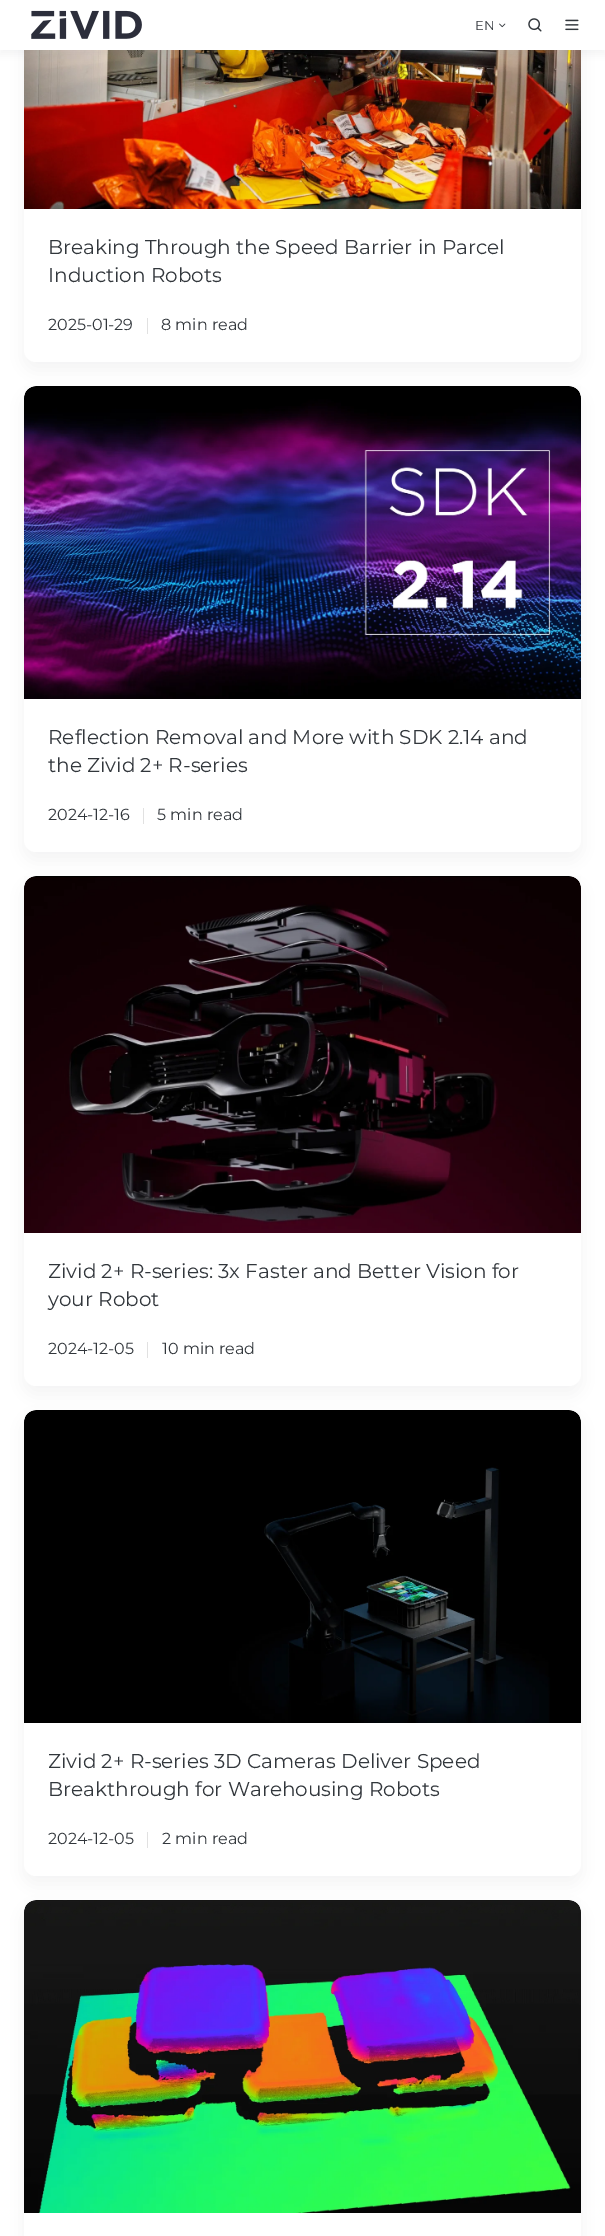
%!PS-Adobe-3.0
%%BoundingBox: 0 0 605 2236
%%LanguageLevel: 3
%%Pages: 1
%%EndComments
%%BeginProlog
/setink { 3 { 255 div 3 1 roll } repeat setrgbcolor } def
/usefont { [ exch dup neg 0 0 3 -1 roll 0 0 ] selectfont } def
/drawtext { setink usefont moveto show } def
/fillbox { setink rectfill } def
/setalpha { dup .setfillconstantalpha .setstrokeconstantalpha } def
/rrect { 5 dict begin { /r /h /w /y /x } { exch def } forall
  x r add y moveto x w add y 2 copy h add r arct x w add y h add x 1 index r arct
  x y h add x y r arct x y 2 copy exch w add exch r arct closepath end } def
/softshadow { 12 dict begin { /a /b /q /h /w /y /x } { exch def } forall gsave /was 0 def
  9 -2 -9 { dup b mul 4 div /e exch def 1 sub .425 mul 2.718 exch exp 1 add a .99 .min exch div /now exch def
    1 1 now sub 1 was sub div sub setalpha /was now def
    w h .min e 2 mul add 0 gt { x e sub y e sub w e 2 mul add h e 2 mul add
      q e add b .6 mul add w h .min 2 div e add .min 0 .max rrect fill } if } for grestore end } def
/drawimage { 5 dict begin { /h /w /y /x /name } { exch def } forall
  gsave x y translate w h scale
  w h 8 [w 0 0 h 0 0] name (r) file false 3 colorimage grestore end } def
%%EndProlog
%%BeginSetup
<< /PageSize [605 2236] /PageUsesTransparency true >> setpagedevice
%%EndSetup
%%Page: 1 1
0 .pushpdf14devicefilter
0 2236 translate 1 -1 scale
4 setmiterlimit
0 0 605 2236 255 255 255 fillbox
50 55 60 setink
24 -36 557 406 12 8 0.05 softshadow
255 255 255 setink
24 -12 557 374 12 rrect fill
(assets/img5.rgb) 24 50 557 159 drawimage
50 55 60 setink
0 4 605 50 0 4 0.05 softshadow
0 0 605 50 255 255 255 fillbox
(assets/img1.rgb) 31 10 111 29 drawimage
(EN) 475 30 /Montserrat-Regular 13 50 55 60 drawtext
(assets/img2.rgb) 499 23 7 5 drawimage
(assets/img3.rgb) 528 18 14 14 drawimage
(assets/img4.rgb) 565 19 14 12 drawimage
(Breaking Through the Speed Barrier in Parcel) 48 254 /Montserrat-Regular 20 50 55 60 drawtext
(Induction Robots) 48 282 /Montserrat-Regular 20 50 55 60 drawtext
(2025-01-29) 48 330 /Montserrat-Regular 16 50 55 60 drawtext
147 318 1 16 225 225 225 fillbox
(8 min read) 161 330 /Montserrat-Regular 16 50 55 60 drawtext
24 394 557 466 12 8 0.05 softshadow
255 255 255 setink
24 386 557 466 12 rrect fill
(assets/img6.rgb) 24 386 557 313 drawimage
(Reflection Removal and More with SDK 2.14 and) 48 744 /Montserrat-Regular 20 50 55 60 drawtext
(the Zivid 2+ R-series) 48 772 /Montserrat-Regular 20 50 55 60 drawtext
(2024-12-16) 48 820 /Montserrat-Regular 16 50 55 60 drawtext
143 808 1 16 225 225 225 fillbox
(5 min read) 157 820 /Montserrat-Regular 16 50 55 60 drawtext
24 884 557 510 12 8 0.05 softshadow
255 255 255 setink
24 876 557 510 12 rrect fill
(assets/img7.rgb) 24 876 557 357 drawimage
(Zivid 2+ R-series: 3x Faster and Better Vision for) 48 1278 /Montserrat-Regular 20 50 55 60 drawtext
(your Robot) 48 1306 /Montserrat-Regular 20 50 55 60 drawtext
(2024-12-05) 48 1354 /Montserrat-Regular 16 50 55 60 drawtext
147 1342 1 16 225 225 225 fillbox
(10 min read) 162 1354 /Montserrat-Regular 16 50 55 60 drawtext
24 1418 557 466 12 8 0.05 softshadow
255 255 255 setink
24 1410 557 466 12 rrect fill
(assets/img8.rgb) 24 1410 557 313 drawimage
(Zivid 2+ R-series 3D Cameras Deliver Speed) 48 1768 /Montserrat-Regular 20 50 55 60 drawtext
(Breakthrough for Warehousing Robots) 48 1796 /Montserrat-Regular 20 50 55 60 drawtext
(2024-12-05) 48 1844 /Montserrat-Regular 16 50 55 60 drawtext
147 1832 1 16 225 225 225 fillbox
(2 min read) 162 1844 /Montserrat-Regular 16 50 55 60 drawtext
24 1908 557 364 12 8 0.05 softshadow
255 255 255 setink
24 1900 557 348 12 rrect fill
(assets/img9.rgb) 24 1900 557 313 drawimage
.poppdf14devicefilter showpage
%%EOF
